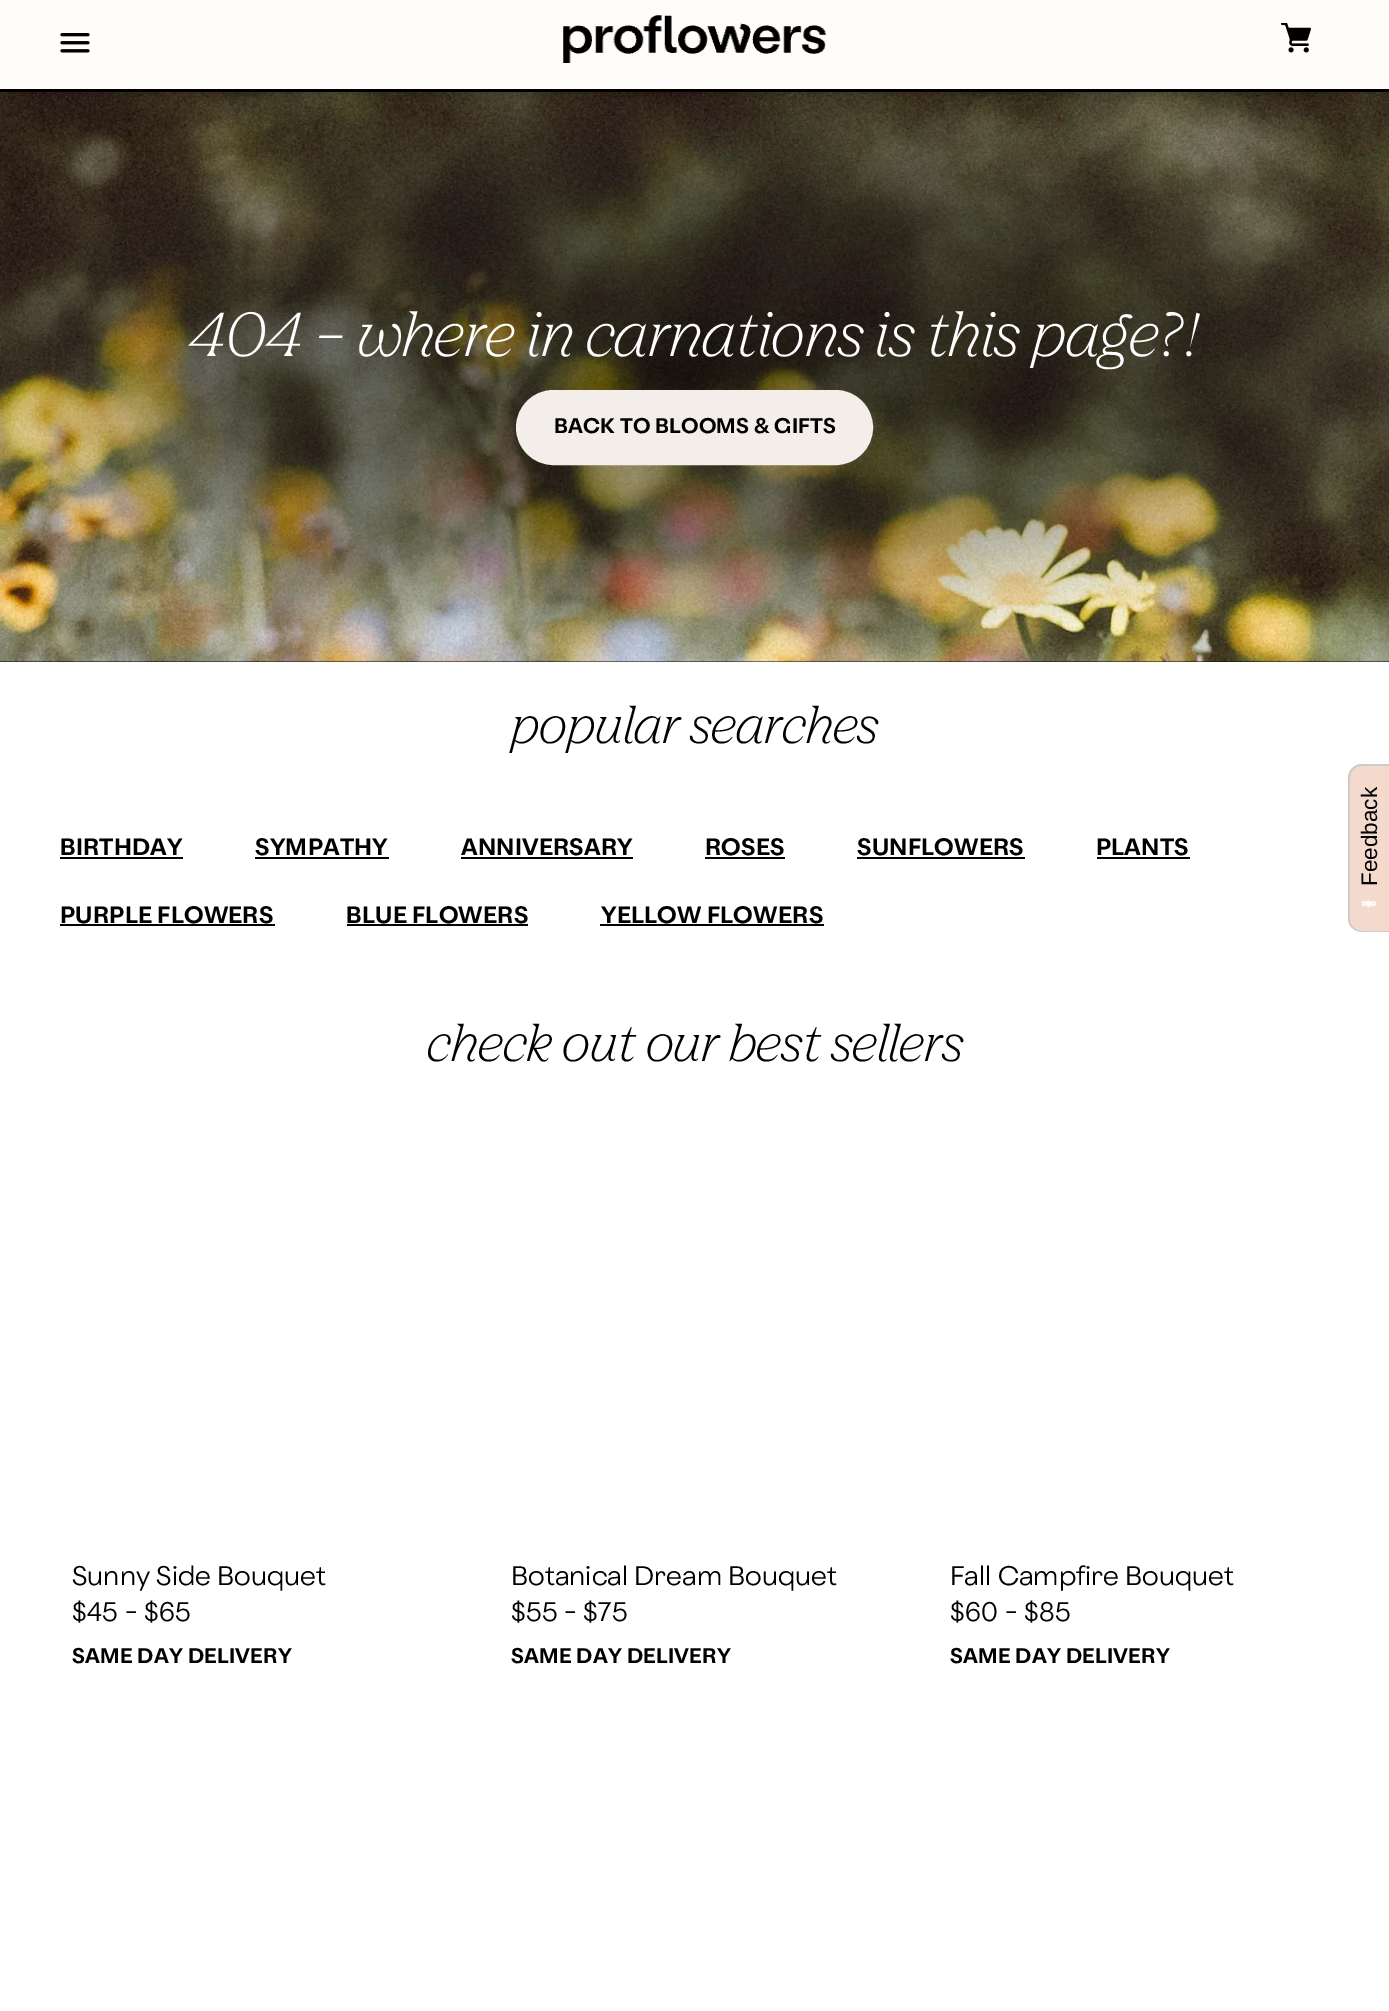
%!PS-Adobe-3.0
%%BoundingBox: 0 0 1389 2011
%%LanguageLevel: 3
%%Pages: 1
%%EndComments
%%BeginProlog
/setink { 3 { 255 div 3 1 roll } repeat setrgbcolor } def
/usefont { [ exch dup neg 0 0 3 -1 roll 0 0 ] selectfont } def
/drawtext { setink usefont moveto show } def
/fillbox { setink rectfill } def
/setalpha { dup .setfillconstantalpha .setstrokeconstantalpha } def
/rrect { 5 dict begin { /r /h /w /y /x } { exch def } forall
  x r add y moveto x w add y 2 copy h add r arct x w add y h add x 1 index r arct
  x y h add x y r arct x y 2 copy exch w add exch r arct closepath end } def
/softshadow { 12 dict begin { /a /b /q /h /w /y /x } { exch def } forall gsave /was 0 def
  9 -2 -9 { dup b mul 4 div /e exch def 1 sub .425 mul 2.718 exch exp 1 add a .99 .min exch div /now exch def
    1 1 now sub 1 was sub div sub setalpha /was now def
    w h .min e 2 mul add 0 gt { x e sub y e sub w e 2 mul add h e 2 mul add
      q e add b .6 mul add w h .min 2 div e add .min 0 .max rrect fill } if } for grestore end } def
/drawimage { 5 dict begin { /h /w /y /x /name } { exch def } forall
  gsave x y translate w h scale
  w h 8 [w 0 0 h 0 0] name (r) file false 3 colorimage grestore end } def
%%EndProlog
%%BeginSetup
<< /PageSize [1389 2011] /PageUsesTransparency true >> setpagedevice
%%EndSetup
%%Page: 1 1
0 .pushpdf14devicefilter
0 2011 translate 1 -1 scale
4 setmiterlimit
0 0 1389 2011 255 255 255 fillbox
0 661 1389 1 0 0 0 fillbox
(assets/img4.rgb) 0 92 1389 570 drawimage
0 5 1389 91 0 4.5 0.16 softshadow
0 0 1389 89 255 252 249 fillbox
0 89 1389 3 0 0 0 fillbox
(assets/img1.rgb) 60 33 30 20 drawimage
(assets/img2.rgb) 563 15 263 48 drawimage
(assets/img3.rgb) 1281 23 30 30 drawimage
(404 - where in carnations is this page?!) 189 356 /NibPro-LightItalic 59.75 255 255 255 drawtext
243 238 233 setink
517 391 355 73 36.5 rrect gsave fill grestore
2 setlinewidth
stroke
/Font-Medium 19 usefont
0 0 0 setink
554 433 moveto 0.25 0 (BACK TO BLOOMS & GIFTS) ashow
(popular searches) 511 743 /NibPro-LightItalic 49.75 0 0 0 drawtext
/Font-Medium 21.25 usefont
60 855 moveto 0.25 0 (BIRTHDAY) ashow
60 857 123 2 0 0 0 fillbox
255 855 moveto 0.25 0 (SYMPATHY) ashow
255 857 134 2 0 0 0 fillbox
461 855 moveto 0.25 0 (ANNIVERSARY) ashow
461 857 172 2 0 0 0 fillbox
705 855 moveto 0.25 0 (ROSES) ashow
705 857 80 2 0 0 0 fillbox
857 855 moveto 0.25 0 (SUNFLOWERS) ashow
857 857 168 2 0 0 0 fillbox
1096 855 moveto 0.25 0 (PLANTS) ashow
1097 857 93 2 0 0 0 fillbox
60 923 moveto 0.25 0 (PURPLE FLOWERS) ashow
60 924 215 2 0 0 0 fillbox
346 923 moveto 0.25 0 (BLUE FLOWERS) ashow
347 924 181 2 0 0 0 fillbox
601 923 moveto 0.25 0 (YELLOW FLOWERS) ashow
600 924 224 2 0 0 0 fillbox
(check out our best sellers) 427 1061 /NibPro-LightItalic 49.75 0 0 0 drawtext
(Sunny Side Bouquet) 72 1585 /Font-Light 24 0 0 0 drawtext
72 1621 moveto 0.25 0 ($45 - $65) ashow
/Font-Medium 19 usefont
72 1663 moveto 0.25 0 (SAME DAY DELIVERY) ashow
(Botanical Dream Bouquet) 511 1585 /Font-Light 24 0 0 0 drawtext
511 1621 moveto 0.25 0 ($55 - $75) ashow
/Font-Medium 19 usefont
511 1663 moveto 0.25 0 (SAME DAY DELIVERY) ashow
(Fall Campfire Bouquet) 950 1585 /Font-Light 24 0 0 0 drawtext
950 1621 moveto 0.25 0 ($60 - $85) ashow
/Font-Medium 19 usefont
950 1663 moveto 0.25 0 (SAME DAY DELIVERY) ashow
244 217 205 setink
1348 919 moveto 1348 778 lineto 1348 770 1355 764 1362 764 curveto 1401 764 lineto 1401 932 lineto 1362 932 lineto 1355 932 1348 926 1348 919 curveto closepath fill
204 204 204 setink
1348 919 moveto 1348 778 lineto 1348 770 1355 764 1362 764 curveto 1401 764 lineto 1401 932 lineto 1362 932 lineto 1355 932 1348 926 1348 919 curveto closepath 1350 919 moveto 1350 778 lineto 1350 771 1355 766 1362 766 curveto 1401 766 lineto 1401 931 lineto 1362 931 lineto 1355 931 1350 925 1350 919 curveto closepath eofill
/LiberationSans-Regular 22.5 usefont
0 0 0 setink
gsave 1377 886 translate -90 rotate 0 0 moveto (Feedback) show grestore
(assets/img5.rgb) 1361 899 15 9 drawimage
.poppdf14devicefilter showpage
%%EOF
